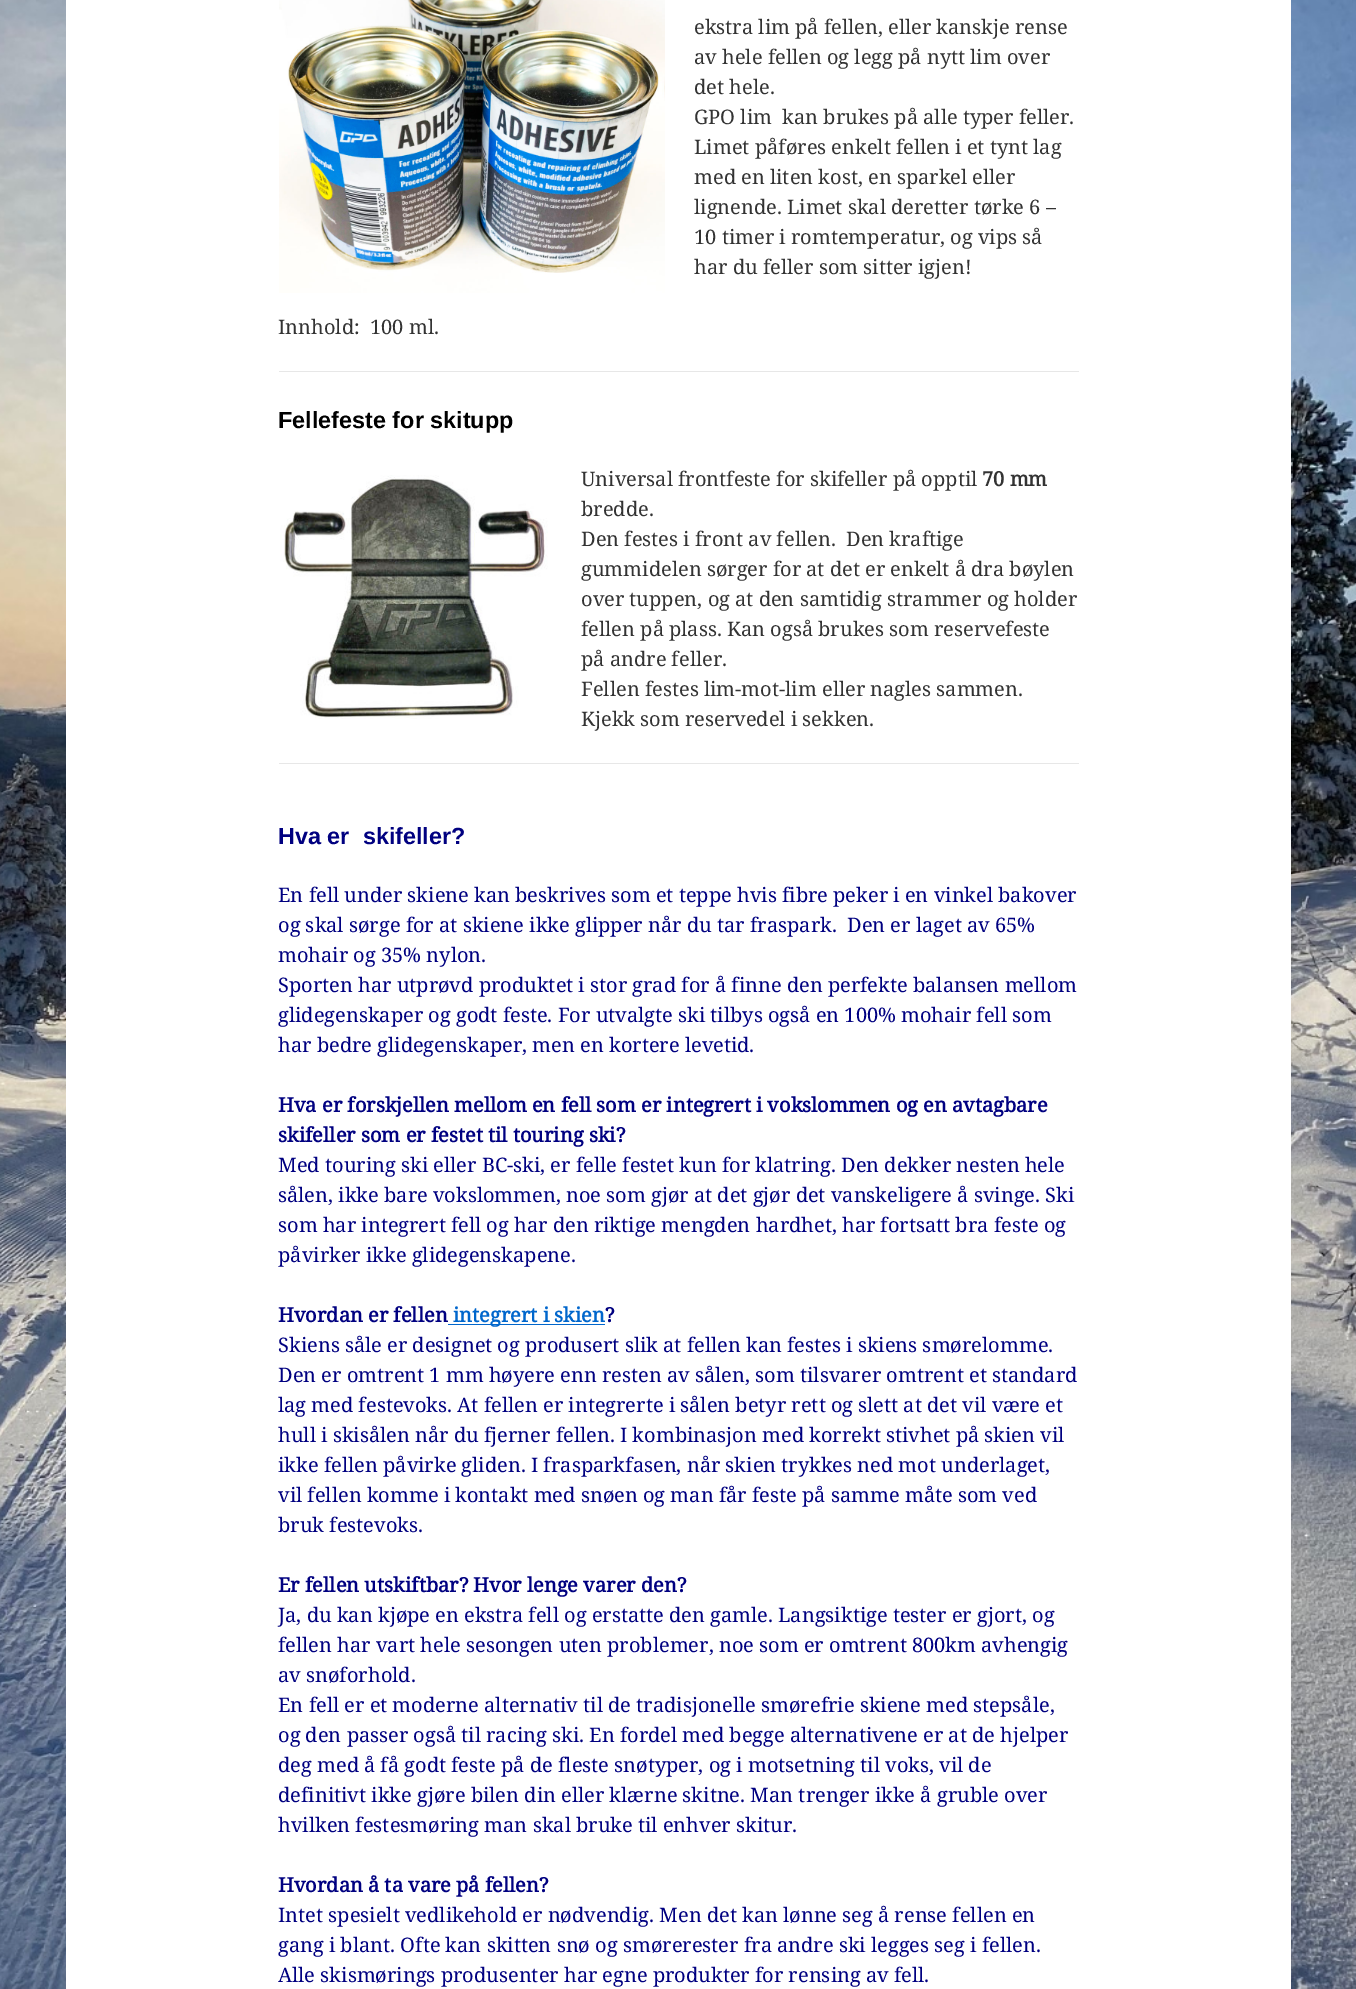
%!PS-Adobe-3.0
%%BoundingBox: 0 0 1356 1989
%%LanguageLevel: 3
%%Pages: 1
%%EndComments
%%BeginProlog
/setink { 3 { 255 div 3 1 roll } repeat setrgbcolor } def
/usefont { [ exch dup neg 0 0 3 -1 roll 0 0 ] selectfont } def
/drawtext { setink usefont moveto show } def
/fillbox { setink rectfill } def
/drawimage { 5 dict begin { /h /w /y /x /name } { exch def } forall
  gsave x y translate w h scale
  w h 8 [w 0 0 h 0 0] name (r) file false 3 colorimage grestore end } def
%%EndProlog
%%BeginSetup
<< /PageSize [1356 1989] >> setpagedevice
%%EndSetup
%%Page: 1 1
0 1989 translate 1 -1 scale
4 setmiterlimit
0 0 1356 1989 255 255 255 fillbox
(assets/img1.rgb) 0 0 1356 1989 drawimage
66 0 1225 1989 255 255 255 fillbox
(assets/img2.rgb) 279 0 386 293 drawimage
(ekstra lim på fellen, eller kanskje rense) 694 34 /NotoSerif-Regular 20 51 51 51 drawtext
(av hele fellen og legg på nytt lim over) 694 64 /NotoSerif-Regular 20 51 51 51 drawtext
(det hele.) 694 94 /NotoSerif-Regular 20 51 51 51 drawtext
(GPO lim  kan brukes på alle typer feller.) 694 124 /NotoSerif-Regular 20 51 51 51 drawtext
(Limet påføres enkelt fellen i et tynt lag) 694 154 /NotoSerif-Regular 20 51 51 51 drawtext
(med en liten kost, en sparkel eller) 694 184 /NotoSerif-Regular 20 51 51 51 drawtext
(lignende. Limet skal deretter tørke 6 –) 694 214 /NotoSerif-Regular 20 51 51 51 drawtext
(10 timer i romtemperatur, og vips så) 694 244 /NotoSerif-Regular 20 51 51 51 drawtext
(har du feller som sitter igjen!) 694 274 /NotoSerif-Regular 20 51 51 51 drawtext
(Innhold:  100 ml.) 278 334 /NotoSerif-Regular 20 51 51 51 drawtext
279 371 800 1 231 231 231 fillbox
(Fellefeste for skitupp) 278 428 /LiberationSans-Bold 23.4 0 0 0 drawtext
(assets/img3.rgb) 280 475 268 244 drawimage
(Universal frontfeste for skifeller på opptil) 581 486 /NotoSerif-Regular 20 51 51 51 drawtext
(70 mm) 982 486 /NotoSerif-Bold 20 51 51 51 drawtext
(bredde.) 581 516 /NotoSerif-Regular 20 51 51 51 drawtext
(Den festes i front av fellen.  Den kraftige) 581 546 /NotoSerif-Regular 20 51 51 51 drawtext
(gummidelen sørger for at det er enkelt å dra bøylen) 581 576 /NotoSerif-Regular 20 51 51 51 drawtext
(over tuppen, og at den samtidig strammer og holder) 581 606 /NotoSerif-Regular 20 51 51 51 drawtext
(fellen på plass. Kan også brukes som reservefeste) 581 636 /NotoSerif-Regular 20 51 51 51 drawtext
(på andre feller.) 581 666 /NotoSerif-Regular 20 51 51 51 drawtext
(Fellen festes lim-mot-lim eller nagles sammen.) 581 696 /NotoSerif-Regular 20 51 51 51 drawtext
(Kjekk som reservedel i sekken.) 581 726 /NotoSerif-Regular 20 51 51 51 drawtext
279 763 800 1 231 231 231 fillbox
(Hva er  skifeller?) 278 844 /LiberationSans-Bold 23.4 0 0 128 drawtext
(En fell under skiene kan beskrives som et teppe hvis fibre peker i en vinkel bakover) 278 902 /NotoSerif-Regular 20 0 0 128 drawtext
(og skal sørge for at skiene ikke glipper når du tar fraspark.  Den er laget av 65%) 278 932 /NotoSerif-Regular 20 0 0 128 drawtext
(mohair og 35% nylon.) 278 962 /NotoSerif-Regular 20 0 0 128 drawtext
(Sporten har utprøvd produktet i stor grad for å finne den perfekte balansen mellom) 278 992 /NotoSerif-Regular 20 0 0 128 drawtext
(glidegenskaper og godt feste. For utvalgte ski tilbys også en 100% mohair fell som) 278 1022 /NotoSerif-Regular 20 0 0 128 drawtext
(har bedre glidegenskaper, men en kortere levetid.) 278 1052 /NotoSerif-Regular 20 0 0 128 drawtext
(Hva er forskjellen mellom en fell som er integrert i vokslommen og en avtagbare) 278 1112 /NotoSerif-Bold 20 0 0 128 drawtext
(skifeller som er festet til touring ski?) 278 1142 /NotoSerif-Bold 20 0 0 128 drawtext
(Med touring ski eller BC-ski, er felle festet kun for klatring. Den dekker nesten hele) 278 1172 /NotoSerif-Regular 20 0 0 128 drawtext
(sålen, ikke bare vokslommen, noe som gjør at det gjør det vanskeligere å svinge. Ski) 278 1202 /NotoSerif-Regular 20 0 0 128 drawtext
(som har integrert fell og har den riktige mengden hardhet, har fortsatt bra feste og) 278 1232 /NotoSerif-Regular 20 0 0 128 drawtext
(påvirker ikke glidegenskapene.) 278 1262 /NotoSerif-Regular 20 0 0 128 drawtext
(Hvordan er fellen) 278 1322 /NotoSerif-Bold 20 0 0 128 drawtext
448 1324 157 1 0 102 204 fillbox
(integrert i skien) 453 1322 /NotoSerif-Bold 20 0 102 204 drawtext
(?) 605 1322 /NotoSerif-Bold 20 0 0 128 drawtext
(Skiens såle er designet og produsert slik at fellen kan festes i skiens smørelomme.) 278 1352 /NotoSerif-Regular 20 0 0 128 drawtext
(Den er omtrent 1 mm høyere enn resten av sålen, som tilsvarer omtrent et standard) 278 1382 /NotoSerif-Regular 20 0 0 128 drawtext
(lag med festevoks. At fellen er integrerte i sålen betyr rett og slett at det vil være et) 278 1412 /NotoSerif-Regular 20 0 0 128 drawtext
(hull i skisålen når du fjerner fellen. I kombinasjon med korrekt stivhet på skien vil) 278 1442 /NotoSerif-Regular 20 0 0 128 drawtext
(ikke fellen påvirke gliden. I frasparkfasen, når skien trykkes ned mot underlaget,) 278 1472 /NotoSerif-Regular 20 0 0 128 drawtext
(vil fellen komme i kontakt med snøen og man får feste på samme måte som ved) 278 1502 /NotoSerif-Regular 20 0 0 128 drawtext
(bruk festevoks.) 278 1532 /NotoSerif-Regular 20 0 0 128 drawtext
(Er fellen utskiftbar? Hvor lenge varer den?) 278 1592 /NotoSerif-Bold 20 0 0 128 drawtext
(Ja, du kan kjøpe en ekstra fell og erstatte den gamle. Langsiktige tester er gjort, og) 278 1622 /NotoSerif-Regular 20 0 0 128 drawtext
(fellen har vart hele sesongen uten problemer, noe som er omtrent 800km avhengig) 278 1652 /NotoSerif-Regular 20 0 0 128 drawtext
(av snøforhold.) 278 1682 /NotoSerif-Regular 20 0 0 128 drawtext
(En fell er et moderne alternativ til de tradisjonelle smørefrie skiene med stepsåle,) 278 1712 /NotoSerif-Regular 20 0 0 128 drawtext
(og den passer også til racing ski. En fordel med begge alternativene er at de hjelper) 278 1742 /NotoSerif-Regular 20 0 0 128 drawtext
(deg med å få godt feste på de fleste snøtyper, og i motsetning til voks, vil de) 278 1772 /NotoSerif-Regular 20 0 0 128 drawtext
(definitivt ikke gjøre bilen din eller klærne skitne. Man trenger ikke å gruble over) 278 1802 /NotoSerif-Regular 20 0 0 128 drawtext
(hvilken festesmøring man skal bruke til enhver skitur.) 278 1832 /NotoSerif-Regular 20 0 0 128 drawtext
(Hvordan å ta vare på fellen?) 278 1892 /NotoSerif-Bold 20 0 0 128 drawtext
(Intet spesielt vedlikehold er nødvendig. Men det kan lønne seg å rense fellen en) 278 1922 /NotoSerif-Regular 20 0 0 128 drawtext
(gang i blant. Ofte kan skitten snø og smørerester fra andre ski legges seg i fellen.) 278 1952 /NotoSerif-Regular 20 0 0 128 drawtext
(Alle skismørings produsenter har egne produkter for rensing av fell.) 278 1982 /NotoSerif-Regular 20 0 0 128 drawtext
showpage
%%EOF
